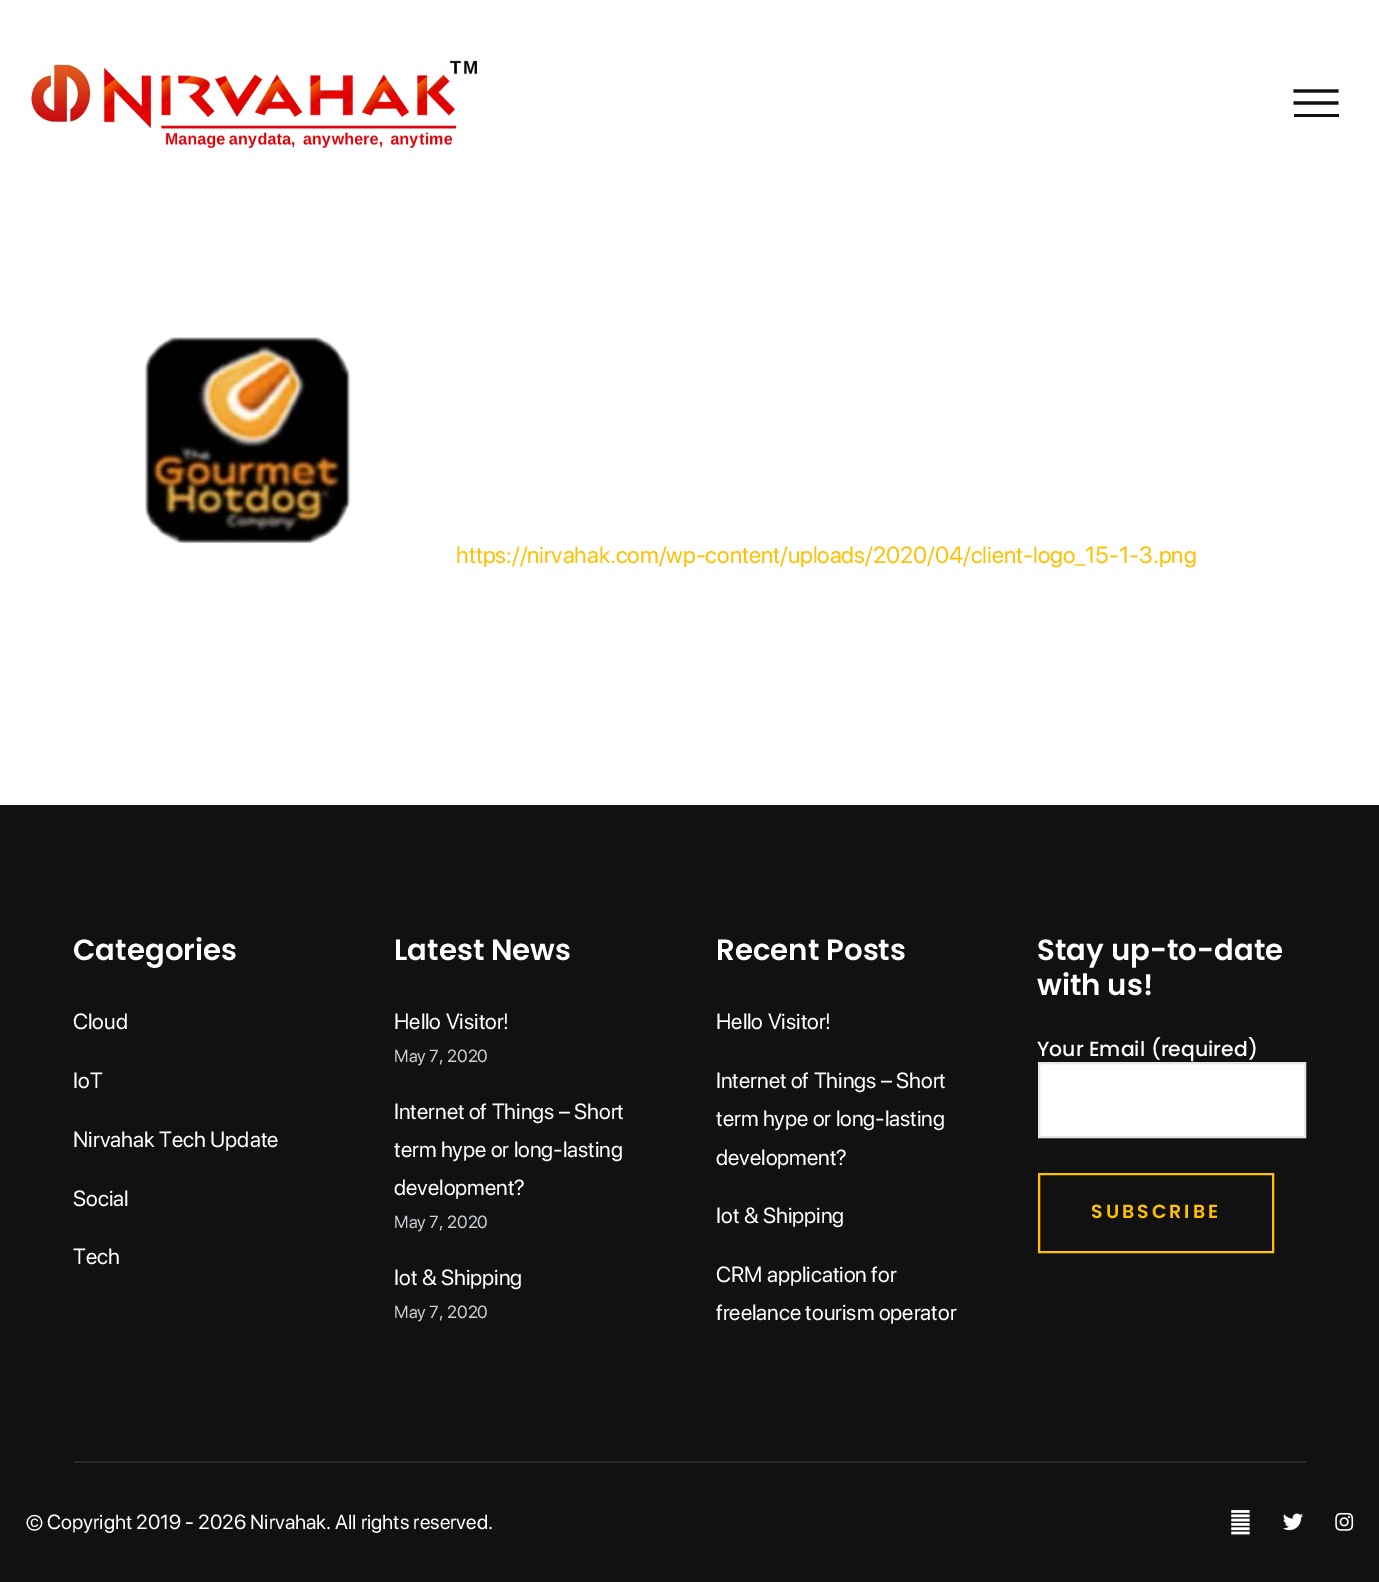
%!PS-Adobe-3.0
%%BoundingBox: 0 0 1379 1582
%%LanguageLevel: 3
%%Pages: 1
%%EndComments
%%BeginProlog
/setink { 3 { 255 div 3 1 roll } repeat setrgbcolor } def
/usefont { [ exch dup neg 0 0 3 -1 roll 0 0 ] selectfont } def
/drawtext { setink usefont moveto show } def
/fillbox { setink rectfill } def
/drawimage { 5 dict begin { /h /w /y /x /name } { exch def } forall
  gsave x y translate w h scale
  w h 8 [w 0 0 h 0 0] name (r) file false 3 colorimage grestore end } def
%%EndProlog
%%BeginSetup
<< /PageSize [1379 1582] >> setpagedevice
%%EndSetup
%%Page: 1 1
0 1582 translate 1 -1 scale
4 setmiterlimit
0 0 1379 1582 255 255 255 fillbox
(assets/img1.rgb) 31 60 446 88 drawimage
17 17 17 setink
3.2 setlinewidth
1293.5 91 moveto 1338.5 91 lineto stroke
1294 114 45 3 17 17 17 fillbox
1293.5 103 moveto 1338.5 103 lineto stroke
(assets/img2.rgb) 144 337 207 207 drawimage
(https://nirvahak.com/wp-content/uploads/2020/04/client-logo_15-1-3.png) 456 563 /SFProDisplay-Regular 23.3 255 192 2 drawtext
0 805 1379 777 17 17 17 fillbox
74 1461 1232 2 41 41 41 fillbox
(Categories) 73 960 /Poppins-SemiBold 29.25 255 255 255 drawtext
(Cloud) 73 1029 /SFProDisplay-Regular 21.9 255 255 255 drawtext
(IoT) 73 1088 /SFProDisplay-Regular 21.9 255 255 255 drawtext
(Nirvahak Tech Update) 73 1147 /SFProDisplay-Regular 21.9 255 255 255 drawtext
(Social) 73 1206 /SFProDisplay-Regular 21.9 255 255 255 drawtext
(Tech) 73 1264 /SFProDisplay-Regular 21.9 255 255 255 drawtext
(Latest News) 394 960 /Poppins-SemiBold 29.25 255 255 255 drawtext
(Hello Visitor!) 394 1029 /SFProDisplay-Regular 21.9 255 255 255 drawtext
(May 7, 2020) 394 1062 /SFProDisplay-Regular 17.5 203 210 216 drawtext
(Internet of Things – Short) 394 1119 /SFProDisplay-Regular 21.9 255 255 255 drawtext
(term hype or long-lasting) 394 1157 /SFProDisplay-Regular 21.9 255 255 255 drawtext
(development?) 394 1195 /SFProDisplay-Regular 21.9 255 255 255 drawtext
(May 7, 2020) 394 1228 /SFProDisplay-Regular 17.5 203 210 216 drawtext
(Iot & Shipping) 394 1285 /SFProDisplay-Regular 21.9 255 255 255 drawtext
(May 7, 2020) 394 1318 /SFProDisplay-Regular 17.5 203 210 216 drawtext
(Recent Posts) 716 960 /Poppins-SemiBold 29.25 255 255 255 drawtext
(Hello Visitor!) 716 1029 /SFProDisplay-Regular 21.9 255 255 255 drawtext
(Internet of Things – Short) 716 1088 /SFProDisplay-Regular 21.9 255 255 255 drawtext
(term hype or long-lasting) 716 1126 /SFProDisplay-Regular 21.9 255 255 255 drawtext
(development?) 716 1165 /SFProDisplay-Regular 21.9 255 255 255 drawtext
(Iot & Shipping) 716 1223 /SFProDisplay-Regular 21.9 255 255 255 drawtext
(CRM application for) 716 1282 /SFProDisplay-Regular 21.9 255 255 255 drawtext
(freelance tourism operator) 716 1320 /SFProDisplay-Regular 21.9 255 255 255 drawtext
(Stay up-to-date) 1037 960 /Poppins-SemiBold 29.25 255 255 255 drawtext
(with us!) 1037 995 /Poppins-SemiBold 29.25 255 255 255 drawtext
(Your Email \(required\)) 1037 1056 /Poppins-Medium 20.4 255 255 255 drawtext
1039 1063 moveto 1305 1063 lineto 1305 1137 lineto 1039 1137 lineto closepath gsave fill grestore
229 229 229 setink
2 setlinewidth
stroke
255 192 2 setink
1039 1174 234 78 rectstroke
/Poppins-SemiBold 19 usefont
1091 1218 moveto 3 0 (SUBSCRIBE) ashow
(© Copyright 2019 - 2026 Nirvahak. All rights reserved.) 26 1529 /SFProDisplay-Regular 20.4 255 255 255 drawtext
(assets/img3.rgb) 1231 1510 19 25 drawimage
(assets/img4.rgb) 1283 1513 20 18 drawimage
(assets/img5.rgb) 1335 1512 19 19 drawimage
showpage
%%EOF
